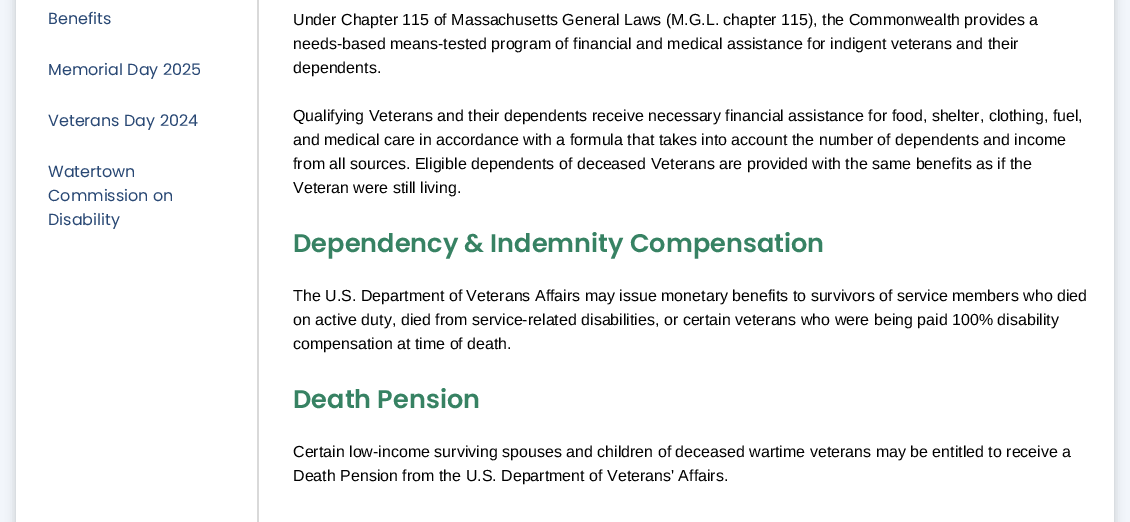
%!PS-Adobe-3.0
%%BoundingBox: 0 0 1130 522
%%LanguageLevel: 3
%%Pages: 1
%%EndComments
%%BeginProlog
/setink { 3 { 255 div 3 1 roll } repeat setrgbcolor } def
/usefont { [ exch dup neg 0 0 3 -1 roll 0 0 ] selectfont } def
/drawtext { setink usefont moveto show } def
/fillbox { setink rectfill } def
/setalpha { dup .setfillconstantalpha .setstrokeconstantalpha } def
/rrect { 5 dict begin { /r /h /w /y /x } { exch def } forall
  x r add y moveto x w add y 2 copy h add r arct x w add y h add x 1 index r arct
  x y h add x y r arct x y 2 copy exch w add exch r arct closepath end } def
/softshadow { 12 dict begin { /a /b /q /h /w /y /x } { exch def } forall gsave /was 0 def
  9 -2 -9 { dup b mul 4 div /e exch def 1 sub .425 mul 2.718 exch exp 1 add a .99 .min exch div /now exch def
    1 1 now sub 1 was sub div sub setalpha /was now def
    w h .min e 2 mul add 0 gt { x e sub y e sub w e 2 mul add h e 2 mul add
      q e add b .6 mul add w h .min 2 div e add .min 0 .max rrect fill } if } for grestore end } def
%%EndProlog
%%BeginSetup
<< /PageSize [1130 522] /PageUsesTransparency true >> setpagedevice
%%EndSetup
%%Page: 1 1
0 .pushpdf14devicefilter
0 522 translate 1 -1 scale
4 setmiterlimit
0 0 1130 522 242 246 251 fillbox
0 0 0 setink
16 -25 1098 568 10 5 0.2 softshadow
16 0 1098 522 255 255 255 fillbox
257 0 2 522 217 217 217 fillbox
(Benefits) 48 24 /Poppins-Regular 16 41 72 116 drawtext
(Memorial Day 2025) 48 75 /Poppins-Regular 16 41 72 116 drawtext
(Veterans Day 2024) 48 126 /Poppins-Regular 16 41 72 116 drawtext
(Watertown) 48 177 /Poppins-Regular 16 41 72 116 drawtext
(Commission on) 48 201 /Poppins-Regular 16 41 72 116 drawtext
(Disability) 48 225 /Poppins-Regular 16 41 72 116 drawtext
(Under Chapter 115 of Massachusetts General Laws \(M.G.L. chapter 115\), the Commonwealth provides a) 293 25 /LiberationSans-Regular 16 0 0 0 drawtext
(needs-based means-tested program of financial and medical assistance for indigent veterans and their) 293 49 /LiberationSans-Regular 16 0 0 0 drawtext
(dependents.) 293 73 /LiberationSans-Regular 16 0 0 0 drawtext
(Qualifying Veterans and their dependents receive necessary financial assistance for food, shelter, clothing, fuel,) 293 121 /LiberationSans-Regular 16 0 0 0 drawtext
(and medical care in accordance with a formula that takes into account the number of dependents and income) 293 145 /LiberationSans-Regular 16 0 0 0 drawtext
(from all sources. Eligible dependents of deceased Veterans are provided with the same benefits as if the) 293 169 /LiberationSans-Regular 16 0 0 0 drawtext
(Veteran were still living.) 293 193 /LiberationSans-Regular 16 0 0 0 drawtext
(Dependency & Indemnity Compensation) 293 252 /Poppins-SemiBold 25.6 55 130 99 drawtext
(The U.S. Department of Veterans Affairs may issue monetary benefits to survivors of service members who died) 293 301 /LiberationSans-Regular 16 0 0 0 drawtext
(on active duty, died from service-related disabilities, or certain veterans who were being paid 100% disability) 293 325 /LiberationSans-Regular 16 0 0 0 drawtext
(compensation at time of death.) 293 349 /LiberationSans-Regular 16 0 0 0 drawtext
(Death Pension) 293 408 /Poppins-SemiBold 25.6 55 130 99 drawtext
(Certain low-income surviving spouses and children of deceased wartime veterans may be entitled to receive a) 293 457 /LiberationSans-Regular 16 0 0 0 drawtext
(Death Pension from the U.S. Department of Veterans' Affairs.) 293 481 /LiberationSans-Regular 16 0 0 0 drawtext
.poppdf14devicefilter showpage
%%EOF
